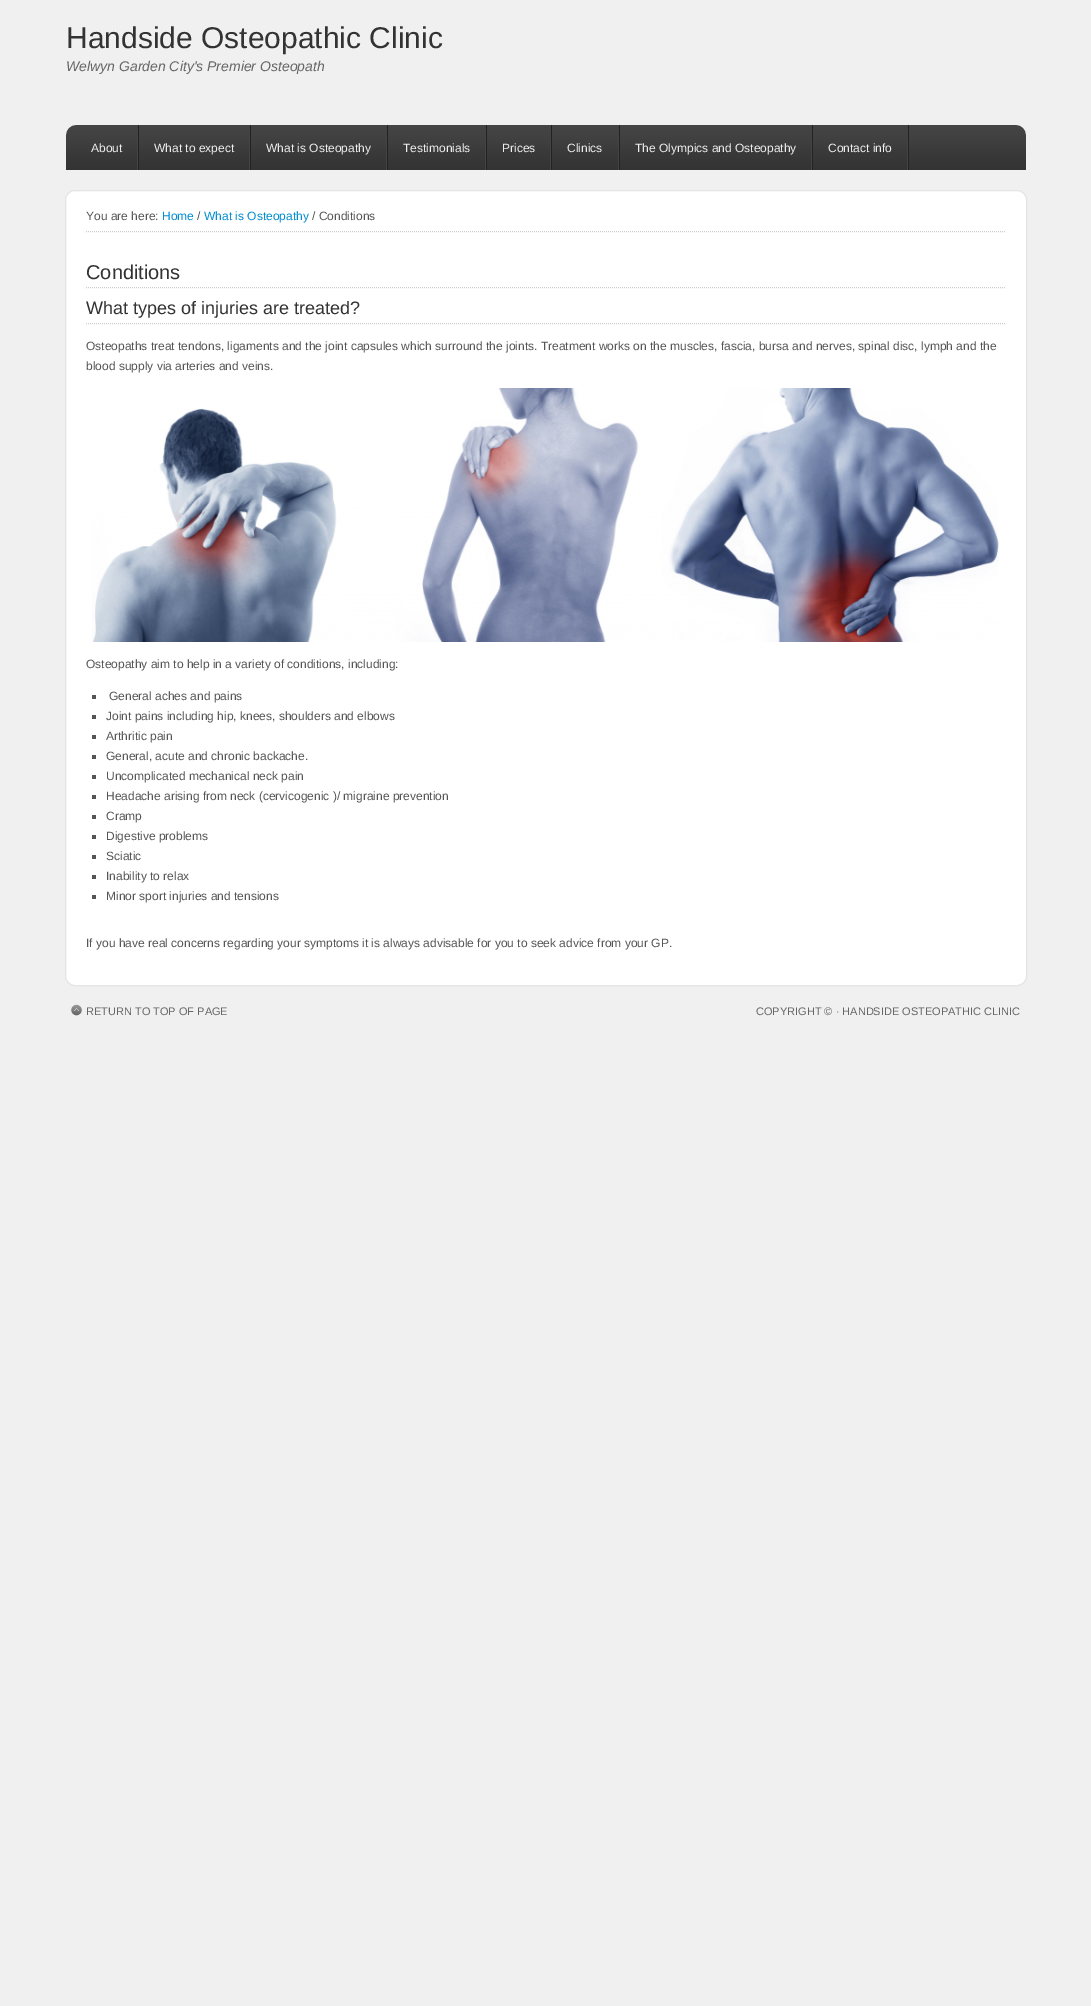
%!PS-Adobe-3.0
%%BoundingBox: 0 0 1091 2006
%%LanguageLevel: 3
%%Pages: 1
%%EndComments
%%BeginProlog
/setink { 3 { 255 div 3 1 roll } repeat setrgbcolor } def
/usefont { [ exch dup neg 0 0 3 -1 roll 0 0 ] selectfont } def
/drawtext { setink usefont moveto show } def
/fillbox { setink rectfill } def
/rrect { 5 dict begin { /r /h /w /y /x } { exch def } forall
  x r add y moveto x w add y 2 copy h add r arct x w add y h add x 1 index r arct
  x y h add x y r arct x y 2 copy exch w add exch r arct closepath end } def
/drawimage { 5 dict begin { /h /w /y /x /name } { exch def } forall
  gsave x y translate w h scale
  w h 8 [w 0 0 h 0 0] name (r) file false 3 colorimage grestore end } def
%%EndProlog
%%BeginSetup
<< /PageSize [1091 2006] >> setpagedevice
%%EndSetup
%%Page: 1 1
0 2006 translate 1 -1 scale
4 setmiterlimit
0 0 1091 2006 240 240 240 fillbox
(Handside Osteopathic Clinic) 66 48 /LiberationSans-Regular 30 51 51 51 drawtext
(Welwyn Garden City's Premier Osteopath) 66 71 /LiberationSans-Italic 14 102 102 102 drawtext
(assets/img1.rgb) 66 125 960 45 drawimage
(assets/img2.rgb) 137 125 2 45 drawimage
(About) 91 152 /LiberationSans-Regular 12 238 238 238 drawtext
(assets/img2.rgb) 249 125 2 45 drawimage
(What to expect) 154 152 /LiberationSans-Regular 12 238 238 238 drawtext
(assets/img2.rgb) 386 125 2 45 drawimage
(What is Osteopathy) 266 152 /LiberationSans-Regular 12 238 238 238 drawtext
(assets/img2.rgb) 485 125 2 45 drawimage
(Testimonials) 403 152 /LiberationSans-Regular 12 238 238 238 drawtext
(assets/img2.rgb) 550 125 2 45 drawimage
(Prices) 502 152 /LiberationSans-Regular 12 238 238 238 drawtext
(assets/img2.rgb) 618 125 2 45 drawimage
(Clinics) 567 152 /LiberationSans-Regular 12 238 238 238 drawtext
(assets/img2.rgb) 811 125 2 45 drawimage
(The Olympics and Osteopathy) 635 152 /LiberationSans-Regular 12 238 238 238 drawtext
(assets/img2.rgb) 907 125 2 45 drawimage
(Contact info) 828 152 /LiberationSans-Regular 12 238 238 238 drawtext
255 255 255 setink
65.5 190.5 961 795 9.5 rrect gsave fill grestore
228 228 228 setink
stroke
204 204 204 setink
[1 1] 0 setdash
86 231.5 moveto 1006 231.5 lineto stroke
(You are here:) 86 220 /LiberationSans-Regular 12 85 85 85 drawtext
(Home) 162 220 /LiberationSans-Regular 12 0 141 207 drawtext
(/) 197 220 /LiberationSans-Regular 12 85 85 85 drawtext
(What is Osteopathy) 204 220 /LiberationSans-Regular 12 0 141 207 drawtext
(/ Conditions) 312 220 /LiberationSans-Regular 12 85 85 85 drawtext
204 204 204 setink
86 287.5 moveto 1006 287.5 lineto stroke
(Conditions) 86 279 /LiberationSans-Regular 20 51 51 51 drawtext
204 204 204 setink
86 323.5 moveto 1006 323.5 lineto stroke
(What types of injuries are treated?) 86 314 /LiberationSans-Regular 18 51 51 51 drawtext
(Osteopaths treat tendons, ligaments and the joint capsules which surround the joints. Treatment works on the muscles, fascia, bursa and nerves, spinal disc, lymph and the) 86 350 /LiberationSans-Regular 12 85 85 85 drawtext
(blood supply via arteries and veins.) 86 370 /LiberationSans-Regular 12 85 85 85 drawtext
(assets/img3.rgb) 92 388 907 254 drawimage
(Osteopathy aim to help in a variety of conditions, including:) 86 668 /LiberationSans-Regular 12 85 85 85 drawtext
92 695 4 4 85 85 85 fillbox
(General aches and pains) 109 700 /LiberationSans-Regular 12 85 85 85 drawtext
92 715 4 4 85 85 85 fillbox
(Joint pains including hip, knees, shoulders and elbows) 106 720 /LiberationSans-Regular 12 85 85 85 drawtext
92 735 4 4 85 85 85 fillbox
(Arthritic pain) 106 740 /LiberationSans-Regular 12 85 85 85 drawtext
92 755 4 4 85 85 85 fillbox
(General, acute and chronic backache.) 106 760 /LiberationSans-Regular 12 85 85 85 drawtext
92 775 4 4 85 85 85 fillbox
(Uncomplicated mechanical neck pain) 106 780 /LiberationSans-Regular 12 85 85 85 drawtext
92 795 4 4 85 85 85 fillbox
(Headache arising from neck \(cervicogenic \)/ migraine prevention) 106 800 /LiberationSans-Regular 12 85 85 85 drawtext
92 815 4 4 85 85 85 fillbox
(Cramp) 106 820 /LiberationSans-Regular 12 85 85 85 drawtext
92 835 4 4 85 85 85 fillbox
(Digestive problems) 106 840 /LiberationSans-Regular 12 85 85 85 drawtext
92 855 4 4 85 85 85 fillbox
(Sciatic) 106 860 /LiberationSans-Regular 12 85 85 85 drawtext
92 875 4 4 85 85 85 fillbox
(Inability to relax) 106 880 /LiberationSans-Regular 12 85 85 85 drawtext
92 895 4 4 85 85 85 fillbox
(Minor sport injuries and tensions) 106 900 /LiberationSans-Regular 12 85 85 85 drawtext
(If you have real concerns regarding your symptoms it is always advisable for you to seek advice from your GP.) 86 947 /LiberationSans-Regular 12 85 85 85 drawtext
(assets/img4.rgb) 71 1004 11 12 drawimage
(RETURN TO TOP OF PAGE) 86 1015 /LiberationSans-Regular 11 102 102 102 drawtext
(COPYRIGHT © · HANDSIDE OSTEOPATHIC CLINIC) 756 1015 /LiberationSans-Regular 11 102 102 102 drawtext
showpage
%%EOF
